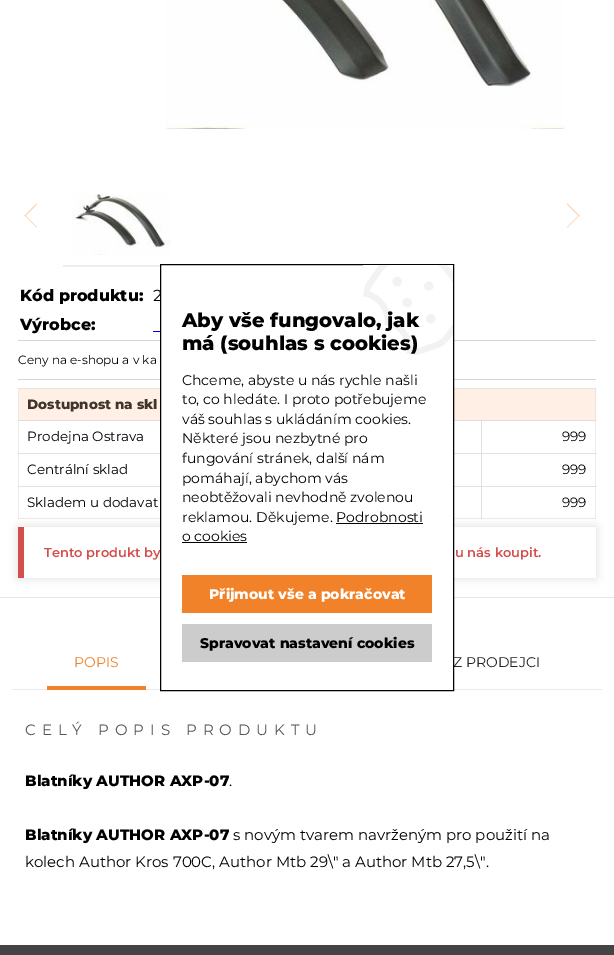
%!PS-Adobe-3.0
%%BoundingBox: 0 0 614 955
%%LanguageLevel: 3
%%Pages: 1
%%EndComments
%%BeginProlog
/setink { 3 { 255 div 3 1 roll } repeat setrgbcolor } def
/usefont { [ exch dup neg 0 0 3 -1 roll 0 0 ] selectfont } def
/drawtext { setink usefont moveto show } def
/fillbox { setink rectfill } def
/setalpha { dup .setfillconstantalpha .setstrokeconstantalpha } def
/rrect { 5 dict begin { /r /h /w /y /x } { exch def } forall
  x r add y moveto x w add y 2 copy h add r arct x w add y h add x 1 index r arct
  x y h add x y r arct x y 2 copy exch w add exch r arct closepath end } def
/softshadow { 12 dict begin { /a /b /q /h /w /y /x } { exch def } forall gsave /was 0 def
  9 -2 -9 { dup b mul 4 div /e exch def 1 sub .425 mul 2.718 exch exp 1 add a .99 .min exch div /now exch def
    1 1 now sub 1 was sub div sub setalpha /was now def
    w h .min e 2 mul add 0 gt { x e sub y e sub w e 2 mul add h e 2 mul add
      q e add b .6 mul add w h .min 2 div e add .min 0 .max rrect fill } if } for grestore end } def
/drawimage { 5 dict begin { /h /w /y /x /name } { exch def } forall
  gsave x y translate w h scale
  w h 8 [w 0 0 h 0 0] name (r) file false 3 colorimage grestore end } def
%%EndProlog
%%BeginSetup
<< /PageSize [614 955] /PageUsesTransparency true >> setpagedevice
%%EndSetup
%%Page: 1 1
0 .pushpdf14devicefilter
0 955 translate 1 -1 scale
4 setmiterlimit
0 0 614 955 255 255 255 fillbox
18 388 1 131 235 235 235 fillbox
18 388 1 1 225 225 225 fillbox
18 420 1 1 217 217 217 fillbox
481 420 1 34 225 225 225 fillbox
595 420 1 67 235 235 235 fillbox
18 453 464 1 225 225 225 fillbox
18 453 1 1 217 217 217 fillbox
481 453 1 34 225 225 225 fillbox
18 518 464 1 235 235 235 fillbox
18 518 1 1 225 225 225 fillbox
18 486 464 1 225 225 225 fillbox
18 486 1 1 217 217 217 fillbox
481 486 1 33 225 225 225 fillbox
481 518 115 1 235 235 235 fillbox
481 518 1 1 217 217 217 fillbox
595 486 1 33 235 235 235 fillbox
595 518 1 1 225 225 225 fillbox
(assets/img1.rgb) 165 0 400 129 drawimage
250 211 180 setink
25 215 moveto 37 227 lineto 36.5 227.5 lineto 24.5 215.5 lineto closepath fill
36.5 203.5 moveto 37 204.5 lineto 25 216.5 lineto 24.5 215.5 lineto closepath fill
63 265 97 2 238 238 238 fillbox
(assets/img2.rgb) 72 194 99 61 drawimage
250 211 180 setink
567.5 203.5 moveto 579.5 215.5 lineto 579 216.5 lineto 567 204.5 lineto closepath fill
579 215 moveto 579.5 215.5 lineto 567.5 227.5 lineto 567 227 lineto closepath fill
(Kód produktu:) 20 301 /Montserrat-ExtraBold 16 0 0 0 drawtext
(2) 153 301 /Montserrat-Regular 16 0 0 0 drawtext
(Výrobce:) 20 330 /Montserrat-ExtraBold 16 0 0 0 drawtext
153 331 7 1 0 0 238 fillbox
18 340 578 1 214 214 214 fillbox
18 379 578 1 214 214 214 fillbox
(Ceny na e-shopu a v ka) 18 364 /Montserrat-Regular 12 0 0 0 drawtext
19 389 576 31 255 239 228 fillbox
595 388 1 33 235 227 221 fillbox
19 388 577 1 235 227 221 fillbox
595 388 1 1 225 221 218 fillbox
19 420 577 1 225 221 218 fillbox
(Dostupnost na skl) 27 409 /Montserrat-ExtraBold 13.5 64 53 44 drawtext
(Prodejna Ostrava) 27 441 /Montserrat-Regular 13.5 0 0 0 drawtext
481 420 1 1 216 215 215 fillbox
595 420 1 1 217 216 215 fillbox
(999) 562 441 /Montserrat-Regular 13.5 0 0 0 drawtext
(Centrální sklad) 27 474 /Montserrat-Regular 13.5 0 0 0 drawtext
481 453 115 1 225 225 225 fillbox
481 453 1 1 215 215 215 fillbox
595 453 1 1 217 217 217 fillbox
(999) 562 474 /Montserrat-Regular 13.5 0 0 0 drawtext
(Skladem u dodavat) 27 507 /Montserrat-Regular 13.5 0 0 0 drawtext
481 486 115 1 225 225 225 fillbox
481 486 1 1 215 215 215 fillbox
595 486 1 1 217 217 217 fillbox
(999) 562 507 /Montserrat-Regular 13.5 0 0 0 drawtext
gsave
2 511 moveto 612 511 lineto 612 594 lineto 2 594 lineto closepath 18 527 moveto 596 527 lineto 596 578 lineto 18 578 lineto closepath eoclip newpath
18 527 578 51 0 5 0.14 softshadow
grestore
18 527 6 51 213 78 78 fillbox
(Tento produkt by) 44 557 /Montserrat-SemiBold 13 213 78 78 drawtext
(u nás koupit.) 455 557 /Montserrat-SemiBold 13 213 78 78 drawtext
0 597 614 1 229 229 229 fillbox
12 689 590 1 234 234 234 fillbox
161 291 292 399 255 255 255 fillbox
(Z PRODEJCI) 453 667 /Montserrat-Regular 14 35 32 34 drawtext
0 0 0 setink
160.5 264.5 293 426 rectstroke
(assets/img3.rgb) 363 265 90 90 drawimage
(Aby vše fungovalo, jak) 182 327 /Montserrat-ExtraBold 19.6 0 0 0 drawtext
(má \(souhlas s cookies\)) 182 350 /Montserrat-ExtraBold 19.6 0 0 0 drawtext
(Chceme, abyste u nás rychle našli) 182 385 /Montserrat-Regular 14 0 0 0 drawtext
(to, co hledáte. I proto potřebujeme) 182 404 /Montserrat-Regular 14 0 0 0 drawtext
(váš souhlas s ukládáním cookies.) 182 424 /Montserrat-Regular 14 0 0 0 drawtext
(Některé jsou nezbytné pro) 182 443 /Montserrat-Regular 14 0 0 0 drawtext
(fungování stránek, další nám) 182 463 /Montserrat-Regular 14 0 0 0 drawtext
(pomáhají, abychom vás) 182 483 /Montserrat-Regular 14 0 0 0 drawtext
(neobtěžovali nevhodně zvolenou) 182 502 /Montserrat-Regular 14 0 0 0 drawtext
(reklamou. Děkujeme. Podrobnosti) 182 522 /Montserrat-Regular 14 0 0 0 drawtext
(o cookies) 182 541 /Montserrat-Regular 14 0 0 0 drawtext
336 523 87 1 0 0 0 fillbox
182 542 65 1 0 0 0 fillbox
182 575 250 38 241 130 41 fillbox
(Přijmout vše a pokračovat) 209 599 /Montserrat-ExtraBold 14 255 255 255 drawtext
182 624 250 38 204 204 204 fillbox
(Spravovat nastavení cookies) 200 648 /Montserrat-ExtraBold 14 0 0 0 drawtext
47 686 99 4 241 130 41 fillbox
(POPIS) 74 667 /Montserrat-Regular 14 241 130 41 drawtext
/Montserrat-Regular 15 usefont
84 84 84 setink
25 735 moveto 6 0 (CELÝ POPIS PRODUKTU) ashow
(Blatníky AUTHOR AXP-07) 25 786 /Montserrat-ExtraBold 15 0 0 0 drawtext
(.) 229 786 /Montserrat-Regular 15 0 0 0 drawtext
(Blatníky AUTHOR AXP-07) 25 840 /Montserrat-ExtraBold 15 0 0 0 drawtext
(s novým tvarem navrženým pro použití na) 233 840 /Montserrat-Regular 15 0 0 0 drawtext
(kolech Author Kros 700C, Author Mtb 29\\" a Author Mtb 27,5\\".) 25 867 /Montserrat-Regular 15 0 0 0 drawtext
0 945 614 10 69 68 69 fillbox
.poppdf14devicefilter showpage
%%EOF
